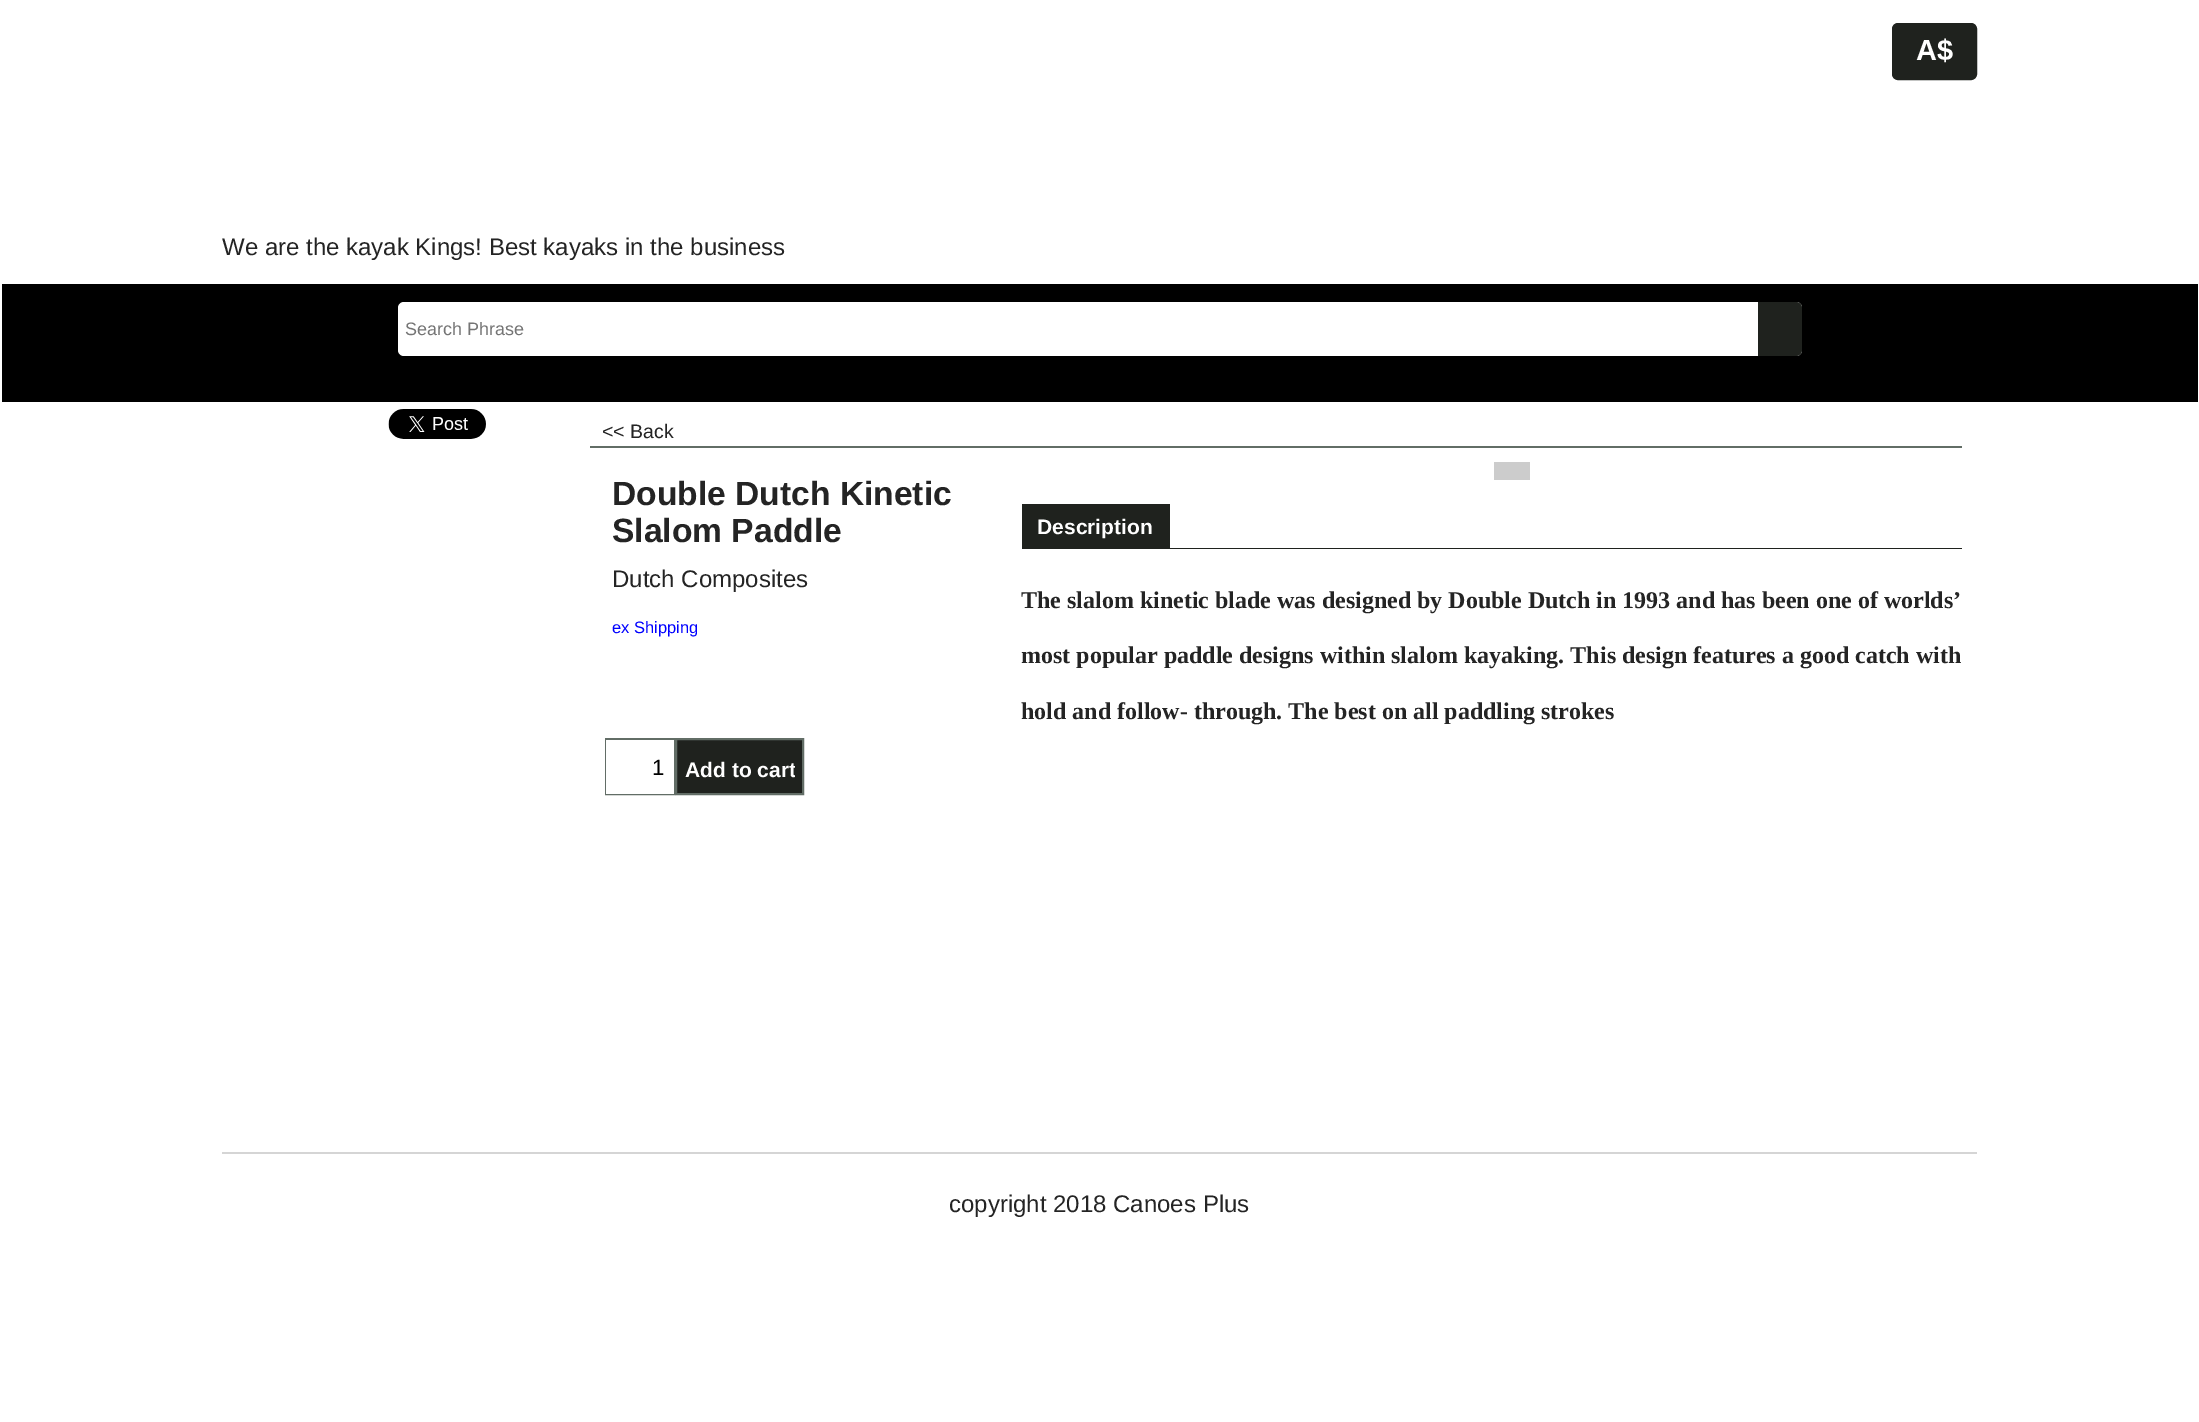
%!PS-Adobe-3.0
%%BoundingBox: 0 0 2199 1422
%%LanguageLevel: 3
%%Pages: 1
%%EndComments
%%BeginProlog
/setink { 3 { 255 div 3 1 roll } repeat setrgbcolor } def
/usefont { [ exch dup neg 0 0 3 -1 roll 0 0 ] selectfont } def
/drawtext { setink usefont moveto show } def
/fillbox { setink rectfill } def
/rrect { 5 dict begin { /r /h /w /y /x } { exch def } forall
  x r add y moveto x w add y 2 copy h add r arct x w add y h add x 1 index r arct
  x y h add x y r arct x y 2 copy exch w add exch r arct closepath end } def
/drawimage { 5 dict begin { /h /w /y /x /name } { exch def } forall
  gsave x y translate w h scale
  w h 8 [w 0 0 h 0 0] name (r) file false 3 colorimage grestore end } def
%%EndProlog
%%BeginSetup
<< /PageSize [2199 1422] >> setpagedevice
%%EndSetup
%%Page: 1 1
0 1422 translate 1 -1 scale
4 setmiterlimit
0 0 2199 1422 255 255 255 fillbox
31 34 30 setink
1893 24 83 55 5 rrect gsave fill grestore
2 setlinewidth
stroke
(A$) 1916 60 /LiberationSans-Bold 29 255 255 255 drawtext
(We are the kayak Kings! Best kayaks in the business) 222 255 /LiberationSans-Regular 24 36 36 36 drawtext
2 284 2196 118 0 0 0 fillbox
255 255 255 setink
398 302 1404 54 6 rrect fill
(Search Phrase) 405 335 /LiberationSans-Regular 18 117 117 117 drawtext
31 34 30 setink
1758 302 moveto 1796 302 lineto 1799.5 302 1802 304.5 1802 308 curveto 1802 350 lineto 1802 353.5 1799.5 356 1796 356 curveto 1758 356 lineto closepath fill
(assets/img1.rgb) 388 409 98 30 drawimage
590 446 1372 2 98 109 102 fillbox
(<< Back) 602 438 /LiberationSans-Regular 19.5 36 36 36 drawtext
1494 462 36 18 204 204 204 fillbox
(Double Dutch Kinetic) 612 505 /LiberationSans-Bold 33.6 36 36 36 drawtext
(Slalom Paddle) 612 542 /LiberationSans-Bold 33.6 36 36 36 drawtext
(Dutch Composites) 612 587 /LiberationSans-Regular 24 36 36 36 drawtext
(ex Shipping) 612 633 /LiberationSans-Regular 16.5 0 0 255 drawtext
98 109 102 setink
606 739 68 55 rectstroke
606 740 68 54 255 255 255 fillbox
(1) 652 775 /LiberationSans-Regular 22 0 0 0 drawtext
31 34 30 setink
676 739 moveto 803 739 lineto 803 794 lineto 676 794 lineto closepath gsave fill grestore
98 109 102 setink
stroke
gsave
684 758 111 24 rectclip
(Add to cart) 685 777 /LiberationSans-Bold 21 255 255 255 drawtext
grestore
1022 504 148 45 31 34 30 fillbox
(Description) 1037 534 /LiberationSans-Bold 21 255 255 255 drawtext
1170 548 792 1 31 34 30 fillbox
(The slalom kinetic blade was designed by Double Dutch in 1993 and has been one of worlds’) 1021 608 /LiberationSerif-Bold 24 36 36 36 drawtext
(most popular paddle designs within slalom kayaking. This design features a good catch with) 1021 663 /LiberationSerif-Bold 24 36 36 36 drawtext
(hold and follow- through. The best on all paddling strokes) 1021 719 /LiberationSerif-Bold 24 36 36 36 drawtext
222 1152 1755 2 213 213 213 fillbox
(copyright 2018 Canoes Plus) 949 1212 /LiberationSans-Regular 24 36 36 36 drawtext
showpage
%%EOF
